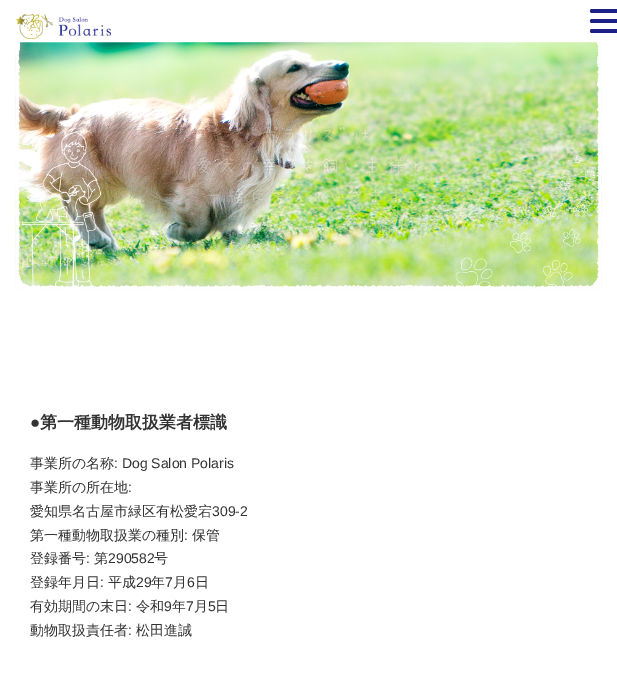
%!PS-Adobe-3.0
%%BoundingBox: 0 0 617 678
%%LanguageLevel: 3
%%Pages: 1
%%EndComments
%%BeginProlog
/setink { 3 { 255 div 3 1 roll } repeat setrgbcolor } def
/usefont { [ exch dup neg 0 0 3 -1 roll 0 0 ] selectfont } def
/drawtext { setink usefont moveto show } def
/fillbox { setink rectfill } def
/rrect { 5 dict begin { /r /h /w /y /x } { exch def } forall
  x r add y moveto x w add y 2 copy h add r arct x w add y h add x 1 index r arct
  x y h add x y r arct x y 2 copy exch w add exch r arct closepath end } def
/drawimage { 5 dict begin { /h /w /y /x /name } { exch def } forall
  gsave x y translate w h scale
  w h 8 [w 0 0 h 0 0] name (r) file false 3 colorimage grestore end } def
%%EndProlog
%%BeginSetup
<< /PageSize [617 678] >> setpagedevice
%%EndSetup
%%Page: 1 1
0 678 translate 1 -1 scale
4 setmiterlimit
0 0 617 678 255 255 255 fillbox
(assets/img1.rgb) 16 14 95 25 drawimage
29 32 135 setink
590 9 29 4 2 rrect fill
590 19 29 4 2 rrect fill
590 29 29 4 2 rrect fill
(assets/img2.rgb) 15 42 587 247 drawimage
(assets/img4.rgb) 22 132 574 155 drawimage
(assets/img3.rgb) 195 125 226 80 drawimage
(●) 30 428 /LiberationSans-Bold 17 51 51 51 drawtext
(第一種動物取扱業者標識) 40 428 /WenQuanYiZenHei-Bold 17 51 51 51 drawtext
(事業所の名称) 30 468 /WenQuanYiZenHei-Medium 14 51 51 51 drawtext
(: Dog Salon Polaris) 114 468 /LiberationSans-Regular 14 51 51 51 drawtext
(事業所の所在地) 30 492 /WenQuanYiZenHei-Medium 14 51 51 51 drawtext
(:) 128 492 /LiberationSans-Regular 14 51 51 51 drawtext
(愛知県名古屋市緑区有松愛宕) 30 516 /WenQuanYiZenHei-Medium 14 51 51 51 drawtext
(309-2) 212 516 /LiberationSans-Regular 14 51 51 51 drawtext
(第一種動物取扱業の種別) 30 540 /WenQuanYiZenHei-Medium 14 51 51 51 drawtext
(:) 184 540 /LiberationSans-Regular 14 51 51 51 drawtext
(保管) 192 540 /WenQuanYiZenHei-Medium 14 51 51 51 drawtext
(登録番号) 30 563 /WenQuanYiZenHei-Medium 14 51 51 51 drawtext
(:) 86 563 /LiberationSans-Regular 14 51 51 51 drawtext
(第) 94 563 /WenQuanYiZenHei-Medium 14 51 51 51 drawtext
(290582) 108 563 /LiberationSans-Regular 14 51 51 51 drawtext
(号) 154 563 /WenQuanYiZenHei-Medium 14 51 51 51 drawtext
(登録年月日) 30 587 /WenQuanYiZenHei-Medium 14 51 51 51 drawtext
(:) 100 587 /LiberationSans-Regular 14 51 51 51 drawtext
(平成) 108 587 /WenQuanYiZenHei-Medium 14 51 51 51 drawtext
(29) 136 587 /LiberationSans-Regular 14 51 51 51 drawtext
(年) 151 587 /WenQuanYiZenHei-Medium 14 51 51 51 drawtext
(7) 165 587 /LiberationSans-Regular 14 51 51 51 drawtext
(月) 173 587 /WenQuanYiZenHei-Medium 14 51 51 51 drawtext
(6) 187 587 /LiberationSans-Regular 14 51 51 51 drawtext
(日) 195 587 /WenQuanYiZenHei-Medium 14 51 51 51 drawtext
(有効期間の末日) 30 611 /WenQuanYiZenHei-Medium 14 51 51 51 drawtext
(:) 128 611 /LiberationSans-Regular 14 51 51 51 drawtext
(令和) 136 611 /WenQuanYiZenHei-Medium 14 51 51 51 drawtext
(9) 164 611 /LiberationSans-Regular 14 51 51 51 drawtext
(年) 172 611 /WenQuanYiZenHei-Medium 14 51 51 51 drawtext
(7) 186 611 /LiberationSans-Regular 14 51 51 51 drawtext
(月) 194 611 /WenQuanYiZenHei-Medium 14 51 51 51 drawtext
(5) 208 611 /LiberationSans-Regular 14 51 51 51 drawtext
(日) 215 611 /WenQuanYiZenHei-Medium 14 51 51 51 drawtext
(動物取扱責任者) 30 635 /WenQuanYiZenHei-Medium 14 51 51 51 drawtext
(:) 128 635 /LiberationSans-Regular 14 51 51 51 drawtext
(松田進誠) 136 635 /WenQuanYiZenHei-Medium 14 51 51 51 drawtext
showpage
%%EOF
